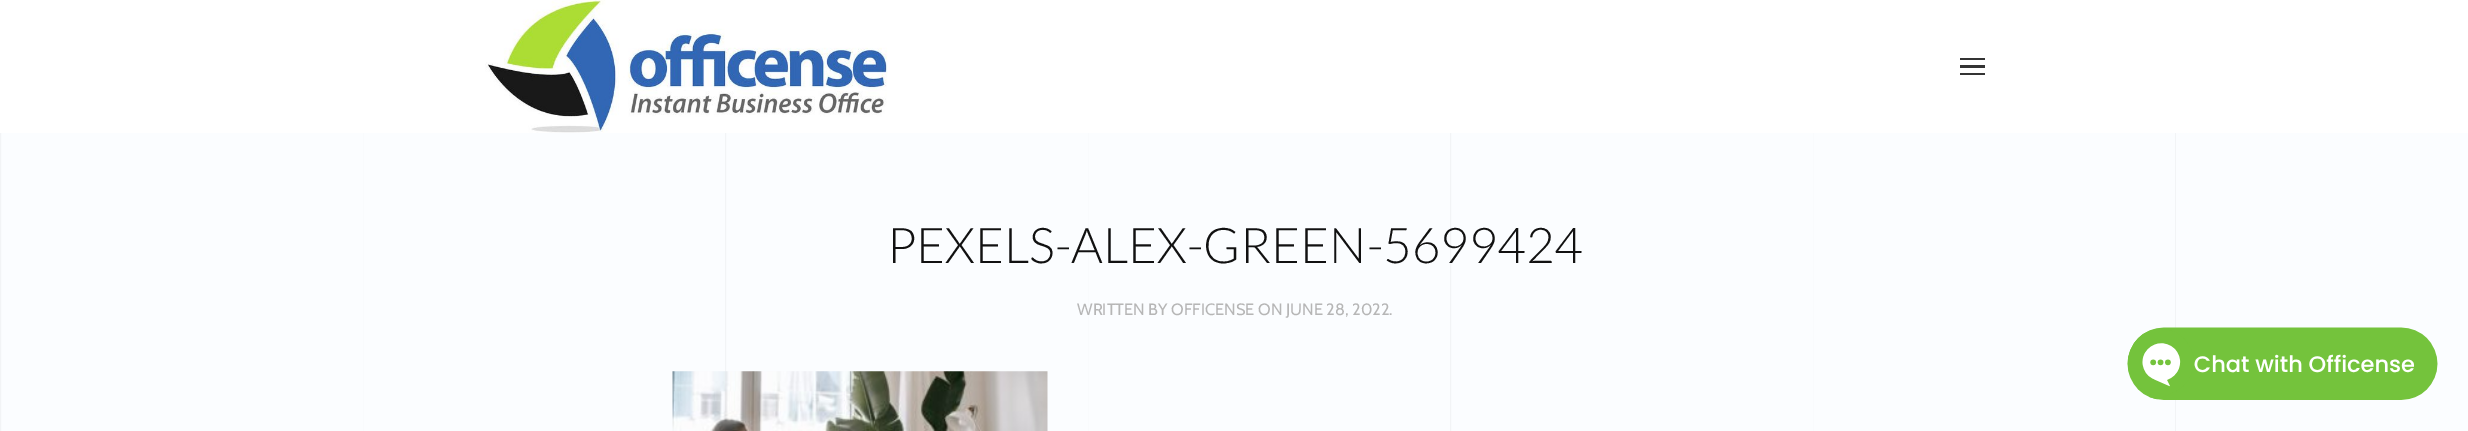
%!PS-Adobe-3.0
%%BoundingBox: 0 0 2468 431
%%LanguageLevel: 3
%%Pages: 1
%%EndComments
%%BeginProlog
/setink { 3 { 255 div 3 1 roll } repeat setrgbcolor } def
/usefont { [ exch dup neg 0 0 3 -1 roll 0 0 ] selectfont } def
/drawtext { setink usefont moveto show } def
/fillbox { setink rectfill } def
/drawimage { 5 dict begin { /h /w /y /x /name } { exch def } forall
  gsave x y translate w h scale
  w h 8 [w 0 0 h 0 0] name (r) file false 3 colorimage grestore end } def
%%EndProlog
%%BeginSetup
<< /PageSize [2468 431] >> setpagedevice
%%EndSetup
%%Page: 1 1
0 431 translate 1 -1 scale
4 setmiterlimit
0 0 2468 431 255 255 255 fillbox
(assets/img1.rgb) 485 0 403 133 drawimage
1960 58 25 2 52 52 52 fillbox
1960 65 25 3 52 52 52 fillbox
1960 73 25 2 52 52 52 fillbox
0 133 2468 298 251 253 255 fillbox
(assets/img2.rgb) 0 133 2176 298 drawimage
(PEXELS-ALEX-GREEN-5699424) 887 263 /Lato-Light 49.25 17 17 17 drawtext
(WRITTEN BY OFFICENSE ON JUNE 28, 2022.) 1077 315 /Cabin-Regular 16.4 182 182 182 drawtext
(assets/img3.rgb) 672 371 376 60 drawimage
(assets/img4.rgb) 2127 327 311 73 drawimage
showpage
%%EOF
